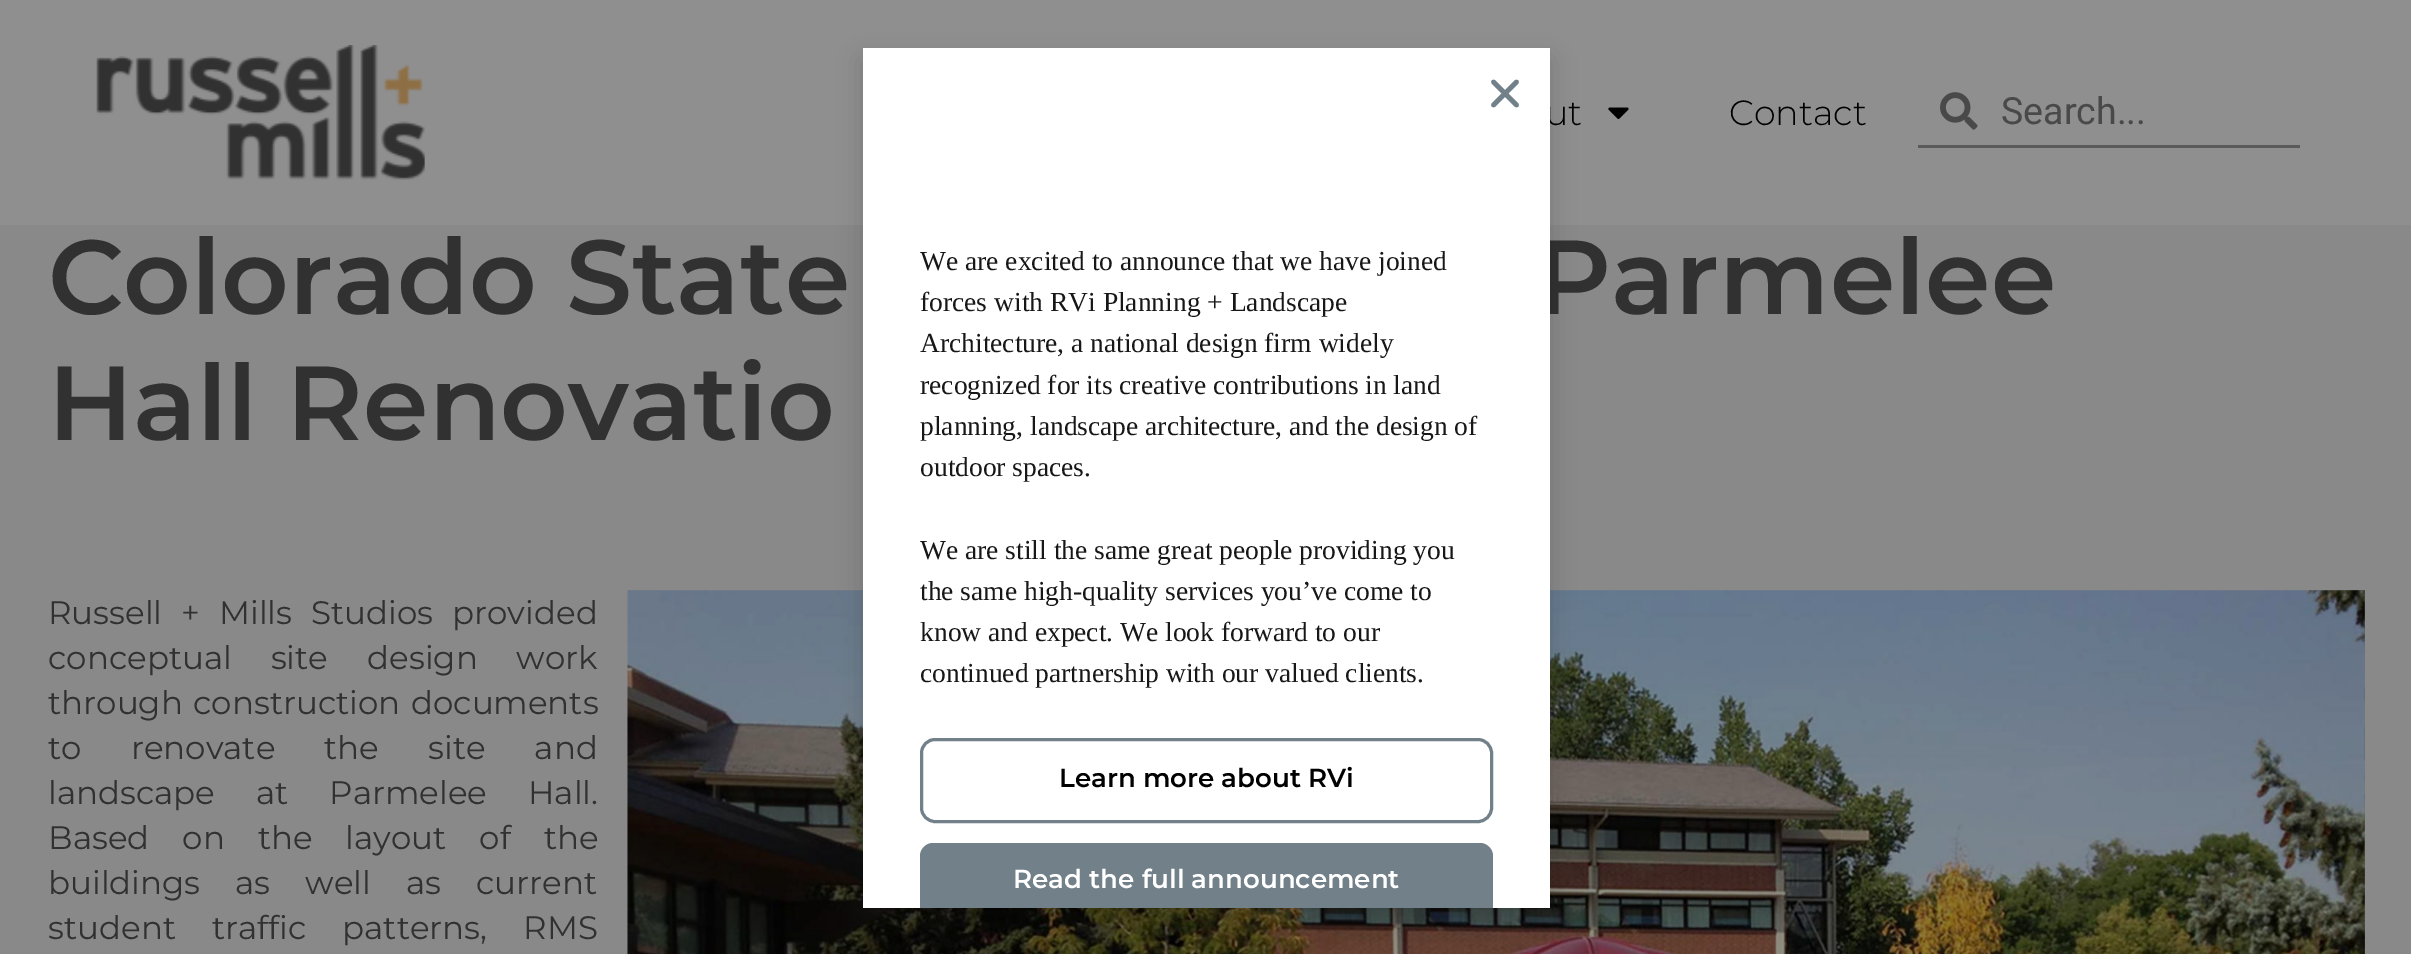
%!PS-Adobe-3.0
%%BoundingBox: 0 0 2411 954
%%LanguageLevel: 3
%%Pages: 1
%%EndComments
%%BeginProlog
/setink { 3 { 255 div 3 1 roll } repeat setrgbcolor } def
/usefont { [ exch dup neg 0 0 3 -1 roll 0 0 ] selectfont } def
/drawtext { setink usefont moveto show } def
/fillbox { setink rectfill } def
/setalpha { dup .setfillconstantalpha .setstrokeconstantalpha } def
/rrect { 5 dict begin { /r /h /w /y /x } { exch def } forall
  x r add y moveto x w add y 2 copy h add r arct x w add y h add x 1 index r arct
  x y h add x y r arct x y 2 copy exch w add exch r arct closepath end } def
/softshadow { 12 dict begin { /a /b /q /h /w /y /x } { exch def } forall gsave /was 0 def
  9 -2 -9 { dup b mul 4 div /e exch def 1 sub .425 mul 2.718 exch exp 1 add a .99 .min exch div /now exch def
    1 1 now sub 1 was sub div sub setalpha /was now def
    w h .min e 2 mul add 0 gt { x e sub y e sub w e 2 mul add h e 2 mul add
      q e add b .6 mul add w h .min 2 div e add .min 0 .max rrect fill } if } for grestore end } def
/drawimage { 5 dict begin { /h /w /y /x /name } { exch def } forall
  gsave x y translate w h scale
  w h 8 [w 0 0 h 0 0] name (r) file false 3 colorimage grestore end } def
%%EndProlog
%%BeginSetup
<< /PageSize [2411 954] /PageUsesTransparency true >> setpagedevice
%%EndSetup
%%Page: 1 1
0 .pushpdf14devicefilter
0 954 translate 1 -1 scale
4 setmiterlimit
0 0 2411 954 137 137 137 fillbox
0 0 2411 225 143 143 143 fillbox
(assets/img1.rgb) 96 45 329 135 drawimage
(ut) 1545 125 /Montserrat-Light 35 0 0 0 drawtext
(assets/img2.rgb) 1608 107 21 12 drawimage
(Contact) 1729 125 /Montserrat-Light 35 0 0 0 drawtext
1918 145 382 3 90 90 90 fillbox
(assets/img3.rgb) 1940 92 38 38 drawimage
(Search...) 2001 124 /Roboto-Regular 37.5 73 73 73 drawtext
(Colorado State) 48 314 /Montserrat-SemiBold 105 49 49 50 drawtext
(Parmelee) 1535 314 /Montserrat-SemiBold 105 49 49 50 drawtext
(Hall Renovatio) 48 440 /Montserrat-SemiBold 105 49 49 50 drawtext
/Montserrat-Regular 32.5 usefont
48 624 moveto 10.5 0 32 (Russell + Mills Studios provided) widthshow
48 669 moveto 30.5 0 32 (conceptual site design work) widthshow
48 714 moveto 2 0 32 (through construction documents) widthshow
48 759 moveto 40.5 0 32 (to renovate the site and) widthshow
48 804 moveto 32.5 0 32 (landscape at Parmelee Hall.) widthshow
48 849 moveto 24.5 0 32 (Based on the layout of the) widthshow
48 894 moveto 26.5 0 32 (buildings as well as current) widthshow
48 939 moveto 27.5 0 32 (student traffic patterns, RMS) widthshow
(assets/img4.rgb) 627 590 1738 364 drawimage
(assets/img5.rgb) 2364 590 1 364 drawimage
0 0 0 setink
863 60 687 860 0 12.5 0.15 softshadow
863 48 687 860 255 255 255 fillbox
114 128 138 setink
4.6 setlinewidth
1 setlinecap
1516.5 82 moveto 1493.5 105 lineto 1493.5 82 moveto 1516.5 105 lineto stroke
(We are excited to announce that we have joined) 920 270 /LiberationSerif-Regular 27.5 23 23 23 drawtext
(forces with RVi Planning + Landscape) 920 311 /LiberationSerif-Regular 27.5 23 23 23 drawtext
(Architecture, a national design firm widely) 920 352 /LiberationSerif-Regular 27.5 23 23 23 drawtext
(recognized for its creative contributions in land) 920 394 /LiberationSerif-Regular 27.5 23 23 23 drawtext
(planning, landscape architecture, and the design of) 920 435 /LiberationSerif-Regular 27.5 23 23 23 drawtext
(outdoor spaces.) 920 476 /LiberationSerif-Regular 27.5 23 23 23 drawtext
(We are still the same great people providing you) 920 559 /LiberationSerif-Regular 27.5 23 23 23 drawtext
(the same high-quality services you’ve come to) 920 600 /LiberationSerif-Regular 27.5 23 23 23 drawtext
(know and expect. We look forward to our) 920 641 /LiberationSerif-Regular 27.5 23 23 23 drawtext
(continued partnership with our valued clients.) 920 682 /LiberationSerif-Regular 27.5 23 23 23 drawtext
114 128 138 setink
3 setlinewidth
0 setlinecap
921.5 739.5 570 82 13.5 rrect stroke
(Learn more about RVi) 1059 787 /Montserrat-SemiBold 26.1 0 0 0 drawtext
114 128 138 setink
933 843 moveto 1480 843 lineto 1487 843 1493 849 1493 856 curveto 1493 908 lineto 920 908 lineto 920 856 lineto 920 849 926 843 933 843 curveto closepath fill
(Read the full announcement) 1013 888 /Montserrat-SemiBold 26.1 255 255 255 drawtext
.poppdf14devicefilter showpage
%%EOF
